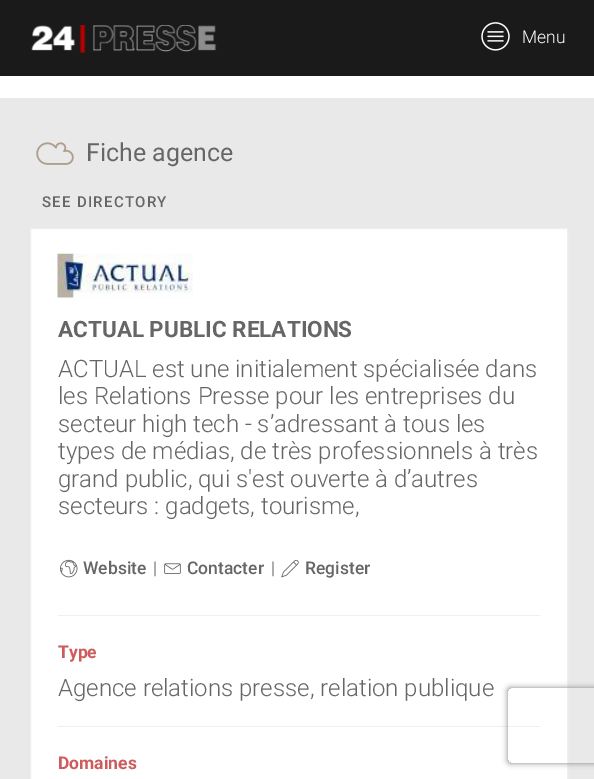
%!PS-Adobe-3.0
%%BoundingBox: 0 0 594 779
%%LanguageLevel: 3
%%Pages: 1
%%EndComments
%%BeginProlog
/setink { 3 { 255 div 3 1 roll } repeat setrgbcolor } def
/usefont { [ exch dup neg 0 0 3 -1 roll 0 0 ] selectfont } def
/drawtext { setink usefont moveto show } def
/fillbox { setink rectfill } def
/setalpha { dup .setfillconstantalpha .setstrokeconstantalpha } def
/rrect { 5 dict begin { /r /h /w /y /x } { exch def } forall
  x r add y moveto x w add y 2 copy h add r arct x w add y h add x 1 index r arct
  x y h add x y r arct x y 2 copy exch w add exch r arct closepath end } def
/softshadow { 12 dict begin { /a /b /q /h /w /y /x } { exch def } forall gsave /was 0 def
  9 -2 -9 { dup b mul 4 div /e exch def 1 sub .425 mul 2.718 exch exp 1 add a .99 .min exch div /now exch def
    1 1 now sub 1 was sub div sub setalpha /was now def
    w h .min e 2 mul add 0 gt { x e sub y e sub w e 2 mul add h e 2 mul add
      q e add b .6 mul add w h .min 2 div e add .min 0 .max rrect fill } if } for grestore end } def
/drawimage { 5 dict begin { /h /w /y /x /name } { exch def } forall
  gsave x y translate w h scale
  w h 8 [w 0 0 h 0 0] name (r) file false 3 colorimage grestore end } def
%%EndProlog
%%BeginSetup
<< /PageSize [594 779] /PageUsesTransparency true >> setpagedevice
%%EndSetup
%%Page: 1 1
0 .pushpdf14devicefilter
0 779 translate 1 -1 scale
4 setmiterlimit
0 0 594 779 255 255 255 fillbox
0 0 594 76 26 26 26 fillbox
(assets/img1.rgb) 31 25 186 28 drawimage
(assets/img2.rgb) 481 22 29 29 drawimage
(Menu) 522 43 /Roboto-Light 17.5 255 255 255 drawtext
0 98 594 681 233 233 233 fillbox
(assets/img3.rgb) 36 142 38 23 drawimage
(Fiche agence) 86 161 /Roboto-Regular 25 102 102 102 drawtext
/Roboto-Medium 15 usefont
42 207 moveto 1.25 0 (SEE DIRECTORY) ashow
255 255 255 setink
30.5 228.5 moveto 567.5 228.5 lineto 567.5 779.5 lineto 30.5 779.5 lineto closepath gsave fill grestore
239 239 239 setink
stroke
58 615 482 1 239 239 239 fillbox
(assets/img4.rgb) 57 253 136 45 drawimage
(ACTUAL PUBLIC RELATIONS) 58 337 /Roboto-Bold 22.5 102 102 102 drawtext
(ACTUAL est une initialement spécialisée dans) 58 377 /Roboto-Light 24 102 102 102 drawtext
(les Relations Presse pour les entreprises du) 58 404 /Roboto-Light 24 102 102 102 drawtext
(secteur high tech - s’adressant à tous les) 58 432 /Roboto-Light 24 102 102 102 drawtext
(types de médias, de très professionnels à très) 58 459 /Roboto-Light 24 102 102 102 drawtext
(grand public, qui s'est ouverte à d’autres) 58 487 /Roboto-Light 24 102 102 102 drawtext
(secteurs : gadgets, tourisme,) 58 514 /Roboto-Light 24 102 102 102 drawtext
(assets/img5.rgb) 60 559 18 19 drawimage
(Website) 83 574 /Roboto-Medium 17.5 102 102 102 drawtext
(|) 153 574 /Roboto-Light 17.5 102 102 102 drawtext
(assets/img6.rgb) 164 563 17 11 drawimage
(Contacter) 187 574 /Roboto-Medium 17.5 102 102 102 drawtext
(|) 271 574 /Roboto-Light 17.5 102 102 102 drawtext
(assets/img7.rgb) 281 559 18 19 drawimage
(Register) 305 574 /Roboto-Medium 17.5 102 102 102 drawtext
(Type) 58 658 /Roboto-Bold 17.5 205 92 92 drawtext
58 726 482 1 239 239 239 fillbox
(Agence relations presse, relation publique) 58 696 /Roboto-Light 24 102 102 102 drawtext
(Domaines) 58 769 /Roboto-Bold 17.5 205 92 92 drawtext
gsave
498 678 moveto 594 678 lineto 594 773 lineto 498 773 lineto closepath 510.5 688 moveto 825.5 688 lineto 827 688 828 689 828 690.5 curveto 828 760.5 lineto 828 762 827 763 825.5 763 curveto 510.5 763 lineto 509 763 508 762 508 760.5 curveto 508 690.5 lineto 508 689 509 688 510.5 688 curveto closepath eoclip newpath
128 128 128 setink
508 688 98 75 2.5 3 1 softshadow
grestore
.poppdf14devicefilter showpage
%%EOF
